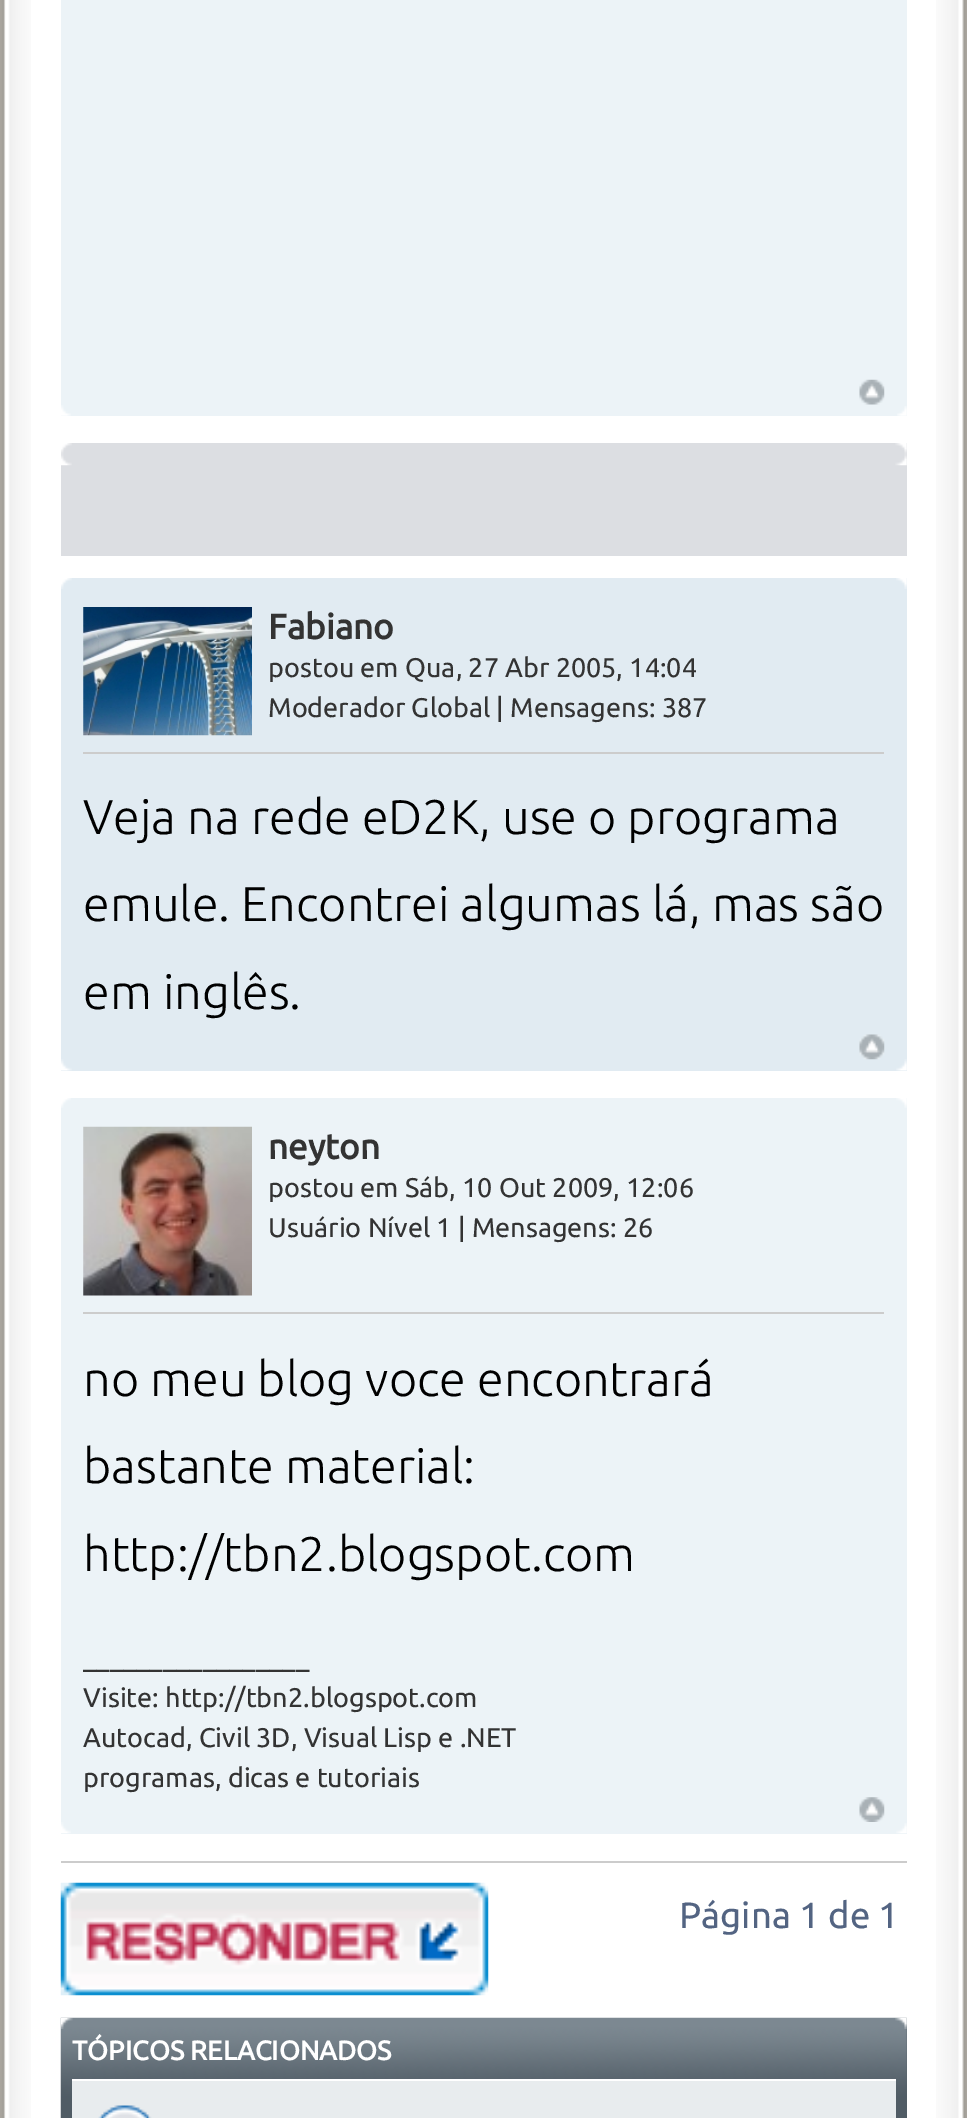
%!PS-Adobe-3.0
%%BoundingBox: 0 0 967 2118
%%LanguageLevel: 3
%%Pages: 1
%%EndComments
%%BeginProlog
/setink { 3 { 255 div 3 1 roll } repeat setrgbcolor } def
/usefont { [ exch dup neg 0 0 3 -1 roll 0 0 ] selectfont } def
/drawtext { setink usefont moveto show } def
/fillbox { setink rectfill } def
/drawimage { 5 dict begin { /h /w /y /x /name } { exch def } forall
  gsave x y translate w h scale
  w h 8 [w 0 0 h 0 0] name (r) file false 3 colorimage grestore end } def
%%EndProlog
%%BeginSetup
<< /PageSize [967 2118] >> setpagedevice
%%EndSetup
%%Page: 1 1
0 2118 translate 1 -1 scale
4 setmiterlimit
0 0 967 2118 255 255 255 fillbox
(assets/img1.rgb) 0 0 31 2118 drawimage
(assets/img2.rgb) 936 0 31 2118 drawimage
61 0 846 416 236 243 247 fillbox
(assets/img3.rgb) 859 379 26 26 drawimage
(assets/img4.rgb) 61 405 10 11 drawimage
(assets/img5.rgb) 897 406 10 10 drawimage
61 443 846 113 220 222 226 fillbox
(assets/img6.rgb) 61 443 11 11 drawimage
(assets/img7.rgb) 895 443 12 11 drawimage
(assets/img8.rgb) 61 454 11 12 drawimage
(assets/img9.rgb) 895 454 12 12 drawimage
61 578 846 493 225 235 242 fillbox
(assets/img10.rgb) 61 578 11 11 drawimage
(assets/img11.rgb) 896 578 11 11 drawimage
(assets/img12.rgb) 83 607 169 129 drawimage
(Fabiano) 268 639 /Ubuntu-Bold 35 51 51 51 drawtext
(postou em Qua, 27 Abr 2005, 14:04) 268 677 /Ubuntu-Regular 27 51 51 51 drawtext
(Moderador Global | Mensagens: 387) 268 717 /Ubuntu-Regular 27 51 51 51 drawtext
83 752 801 2 204 204 204 fillbox
(Veja na rede eD2K, use o programa) 83 834 /Ubuntu-Light 48.6 0 0 0 drawtext
(emule. Encontrei algumas lá, mas são) 83 921 /Ubuntu-Light 48.6 0 0 0 drawtext
(em inglês.) 83 1009 /Ubuntu-Light 48.6 0 0 0 drawtext
(assets/img13.rgb) 859 1034 26 26 drawimage
(assets/img14.rgb) 61 1059 11 12 drawimage
(assets/img15.rgb) 896 1059 11 12 drawimage
61 1098 846 736 236 243 247 fillbox
(assets/img16.rgb) 61 1098 10 10 drawimage
(assets/img17.rgb) 896 1098 11 10 drawimage
(assets/img18.rgb) 83 1126 169 170 drawimage
(neyton) 268 1159 /Ubuntu-Bold 35 51 51 51 drawtext
(postou em Sáb, 10 Out 2009, 12:06) 268 1197 /Ubuntu-Regular 27 51 51 51 drawtext
(Usuário Nível 1 | Mensagens: 26) 268 1237 /Ubuntu-Regular 27 51 51 51 drawtext
83 1312 801 2 204 204 204 fillbox
(no meu blog voce encontrará) 83 1396 /Ubuntu-Light 48.6 0 0 0 drawtext
(bastante material:) 83 1483 /Ubuntu-Light 48.6 0 0 0 drawtext
(http://tbn2.blogspot.com) 83 1571 /Ubuntu-Light 48.6 0 0 0 drawtext
(_________________) 83 1667 /Ubuntu-Regular 27 51 51 51 drawtext
(Visite: http://tbn2.blogspot.com) 83 1707 /Ubuntu-Regular 27 51 51 51 drawtext
(Autocad, Civil 3D, Visual Lisp e .NET) 83 1747 /Ubuntu-Regular 27 51 51 51 drawtext
(programas, dicas e tutoriais) 83 1787 /Ubuntu-Regular 27 51 51 51 drawtext
(assets/img19.rgb) 859 1797 26 25 drawimage
(assets/img20.rgb) 61 1822 10 12 drawimage
(assets/img21.rgb) 896 1823 11 11 drawimage
61 1861 846 2 204 204 204 fillbox
(assets/img22.rgb) 60 1882 429 114 drawimage
(Página 1 de 1) 679 1928 /Ubuntu-Regular 36.5 83 100 130 drawtext
(assets/img23.rgb) 60 2017 847 101 drawimage
(assets/img24.rgb) 60 2017 13 12 drawimage
(assets/img25.rgb) 895 2017 12 12 drawimage
(TÓPICOS RELACIONADOS) 72 2060 /Ubuntu-Bold 27 255 255 255 drawtext
72 2081 824 37 232 236 238 fillbox
72 2079 824 2 255 255 255 fillbox
(assets/img26.rgb) 98 2105 54 13 drawimage
showpage
%%EOF
